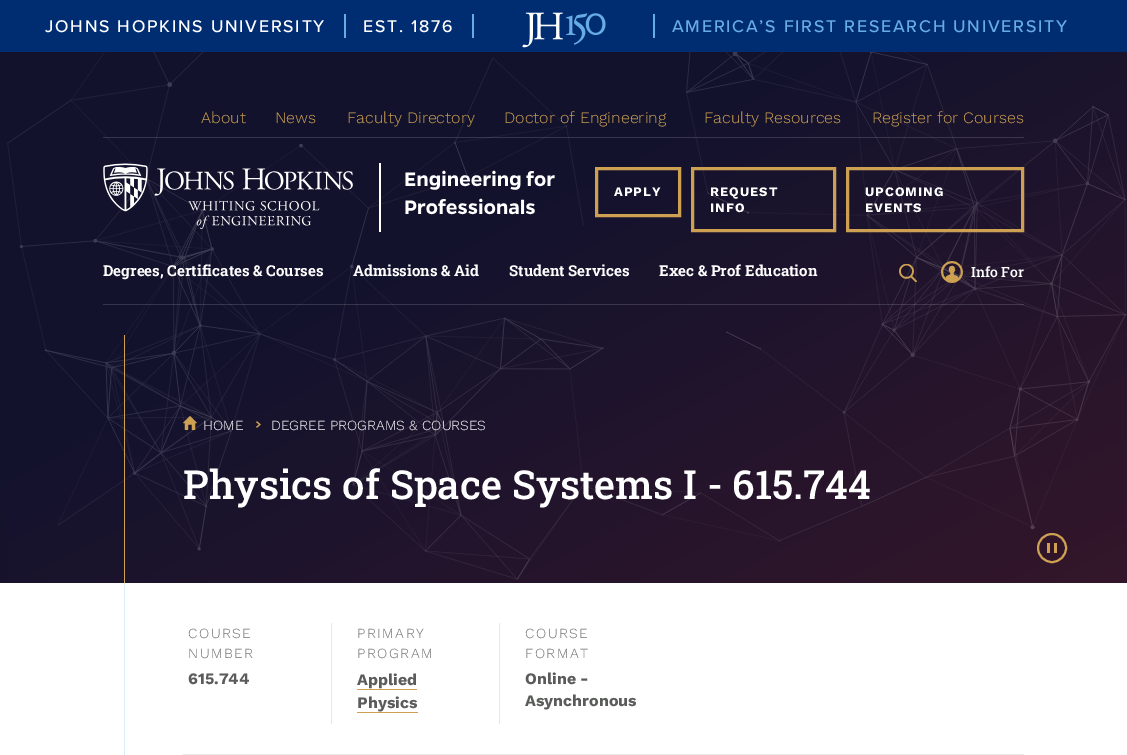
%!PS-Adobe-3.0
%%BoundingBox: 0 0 1127 755
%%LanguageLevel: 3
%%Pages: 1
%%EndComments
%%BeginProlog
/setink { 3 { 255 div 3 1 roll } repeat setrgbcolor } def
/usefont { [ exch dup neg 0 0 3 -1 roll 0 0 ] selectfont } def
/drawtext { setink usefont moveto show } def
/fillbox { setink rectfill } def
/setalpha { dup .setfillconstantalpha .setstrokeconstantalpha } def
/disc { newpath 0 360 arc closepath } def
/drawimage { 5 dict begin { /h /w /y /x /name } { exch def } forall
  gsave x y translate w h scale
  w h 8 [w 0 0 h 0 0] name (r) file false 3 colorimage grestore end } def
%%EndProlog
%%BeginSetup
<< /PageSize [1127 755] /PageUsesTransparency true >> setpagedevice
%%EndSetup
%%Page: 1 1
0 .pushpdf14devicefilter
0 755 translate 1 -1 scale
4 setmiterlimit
0 0 1127 755 255 255 255 fillbox
0 0 1127 52 0 45 114 fillbox
/ProximaNova-Medium 17.6 usefont
255 255 255 setink
45 32 moveto 1.75 0 (JOHNS HOPKINS UNIVERSITY) ashow
344 14 2 24 104 172 229 fillbox
255 255 255 setink
363 32 moveto 1.75 0 (EST. 1876) ashow
472 14 2 24 104 172 229 fillbox
(assets/img1.rgb) 522 12 84 36 drawimage
653 14 2 24 104 172 229 fillbox
672 32 moveto 1.75 0 (AMERICA’S FIRST RESEARCH UNIVERSITY) ashow
gsave 0 52 moveto 1127 52 lineto 1127 583 lineto 0 583 lineto closepath clip newpath
<< /ShadingType 2 /ColorSpace /DeviceRGB /Coords [247 -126 880 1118] /Extend [true true] /Function << /FunctionType 3 /Domain [0 1] /Functions [<< /FunctionType 2 /Domain [0 1] /C0 [0.071 0.071 0.176] /C1 [0.071 0.071 0.176] /N 1 >> << /FunctionType 2 /Domain [0 1] /C0 [0.071 0.071 0.176] /C1 [0.278 0.094 0.157] /N 1 >>] /Bounds [0.29] /Encode [0 1 0 1] >> >> shfill grestore
(assets/img2.rgb) 7 52 1120 528 drawimage
205 160 82 setink
2 setlinewidth
1052 548 14 disc stroke
(assets/img3.rgb) 1047 543 10 10 drawimage
0.15 setalpha
103 137 921 1 255 255 255 fillbox
1 setalpha
(About) 201 123 /WorkSans-Light 16 205 160 82 drawtext
(News) 275 123 /WorkSans-Light 16 205 160 82 drawtext
(Faculty Directory) 347 123 /WorkSans-Light 16 205 160 82 drawtext
(Doctor of Engineering) 504 123 /WorkSans-Light 16 205 160 82 drawtext
(Faculty Resources) 704 123 /WorkSans-Light 16 205 160 82 drawtext
(Register for Courses) 872 123 /WorkSans-Light 16 205 160 82 drawtext
(assets/img4.rgb) 103 163 452 69 drawimage
3 setlinewidth
596.5 168.5 83 47 rectstroke
/WorkSans-Bold 13 usefont
255 255 255 setink
614 196 moveto 1 0 (APPLY) ashow
205 160 82 setink
692.5 168.5 142 62 rectstroke
255 255 255 setink
710 196 moveto 1 0 (REQUEST) ashow
710 212 moveto 1 0 (INFO) ashow
205 160 82 setink
847.5 168.5 175 62 rectstroke
255 255 255 setink
865 196 moveto 1 0 (UPCOMING) ashow
865 212 moveto 1 0 (EVENTS) ashow
0.15 setalpha
103 304 921 1 255 255 255 fillbox
1 setalpha
(Degrees, Certificates & Courses) 103 276 /RobotoSlab-Bold 15 255 255 255 drawtext
(Admissions & Aid) 353 276 /RobotoSlab-Bold 15 255 255 255 drawtext
(Student Services) 509 276 /RobotoSlab-Bold 15 255 255 255 drawtext
(Exec & Prof Education) 659 276 /RobotoSlab-Bold 15 255 255 255 drawtext
(assets/img5.rgb) 899 263 18 20 drawimage
(assets/img6.rgb) 941 261 22 22 drawimage
(Info For) 971 277 /RobotoSlab-Medium 14 255 255 255 drawtext
124 335 1 248 205 160 82 fillbox
(assets/img7.rgb) 183 416 14 14 drawimage
(HOME) 203 430 /WorkSans-Light 14 255 255 255 drawtext
(assets/img8.rgb) 256 421 5 7 drawimage
(DEGREE PROGRAMS & COURSES) 271 430 /WorkSans-Light 14 255 255 255 drawtext
(Physics of Space Systems I - 615.744) 183 499 /RobotoSlab-Medium 40 255 255 255 drawtext
124 583 1 172 220 236 249 fillbox
183 754 841 1 232 232 232 fillbox
/WorkSans-Light 14 usefont
113 113 113 setink
188 638 moveto 1.5 0 (COURSE) ashow
188 658 moveto 1.5 0 (NUMBER) ashow
(615.744) 188 684 /WorkSans-Bold 16 90 92 90 drawtext
331 623 1 101 232 232 232 fillbox
/WorkSans-Light 14 usefont
113 113 113 setink
357 638 moveto 1.5 0 (PRIMARY) ashow
357 658 moveto 1.5 0 (PROGRAM) ashow
(Applied) 357 685 /WorkSans-Bold 16 90 92 90 drawtext
357 689 60 1 205 160 82 fillbox
(Physics) 357 708 /WorkSans-Bold 16 90 92 90 drawtext
357 712 61 1 205 160 82 fillbox
499 623 1 101 232 232 232 fillbox
/WorkSans-Light 14 usefont
113 113 113 setink
525 638 moveto 1.5 0 (COURSE) ashow
525 658 moveto 1.5 0 (FORMAT) ashow
(Online -) 525 684 /WorkSans-Bold 16 90 92 90 drawtext
(Asynchronous) 525 706 /WorkSans-Bold 16 90 92 90 drawtext
.poppdf14devicefilter showpage
%%EOF
